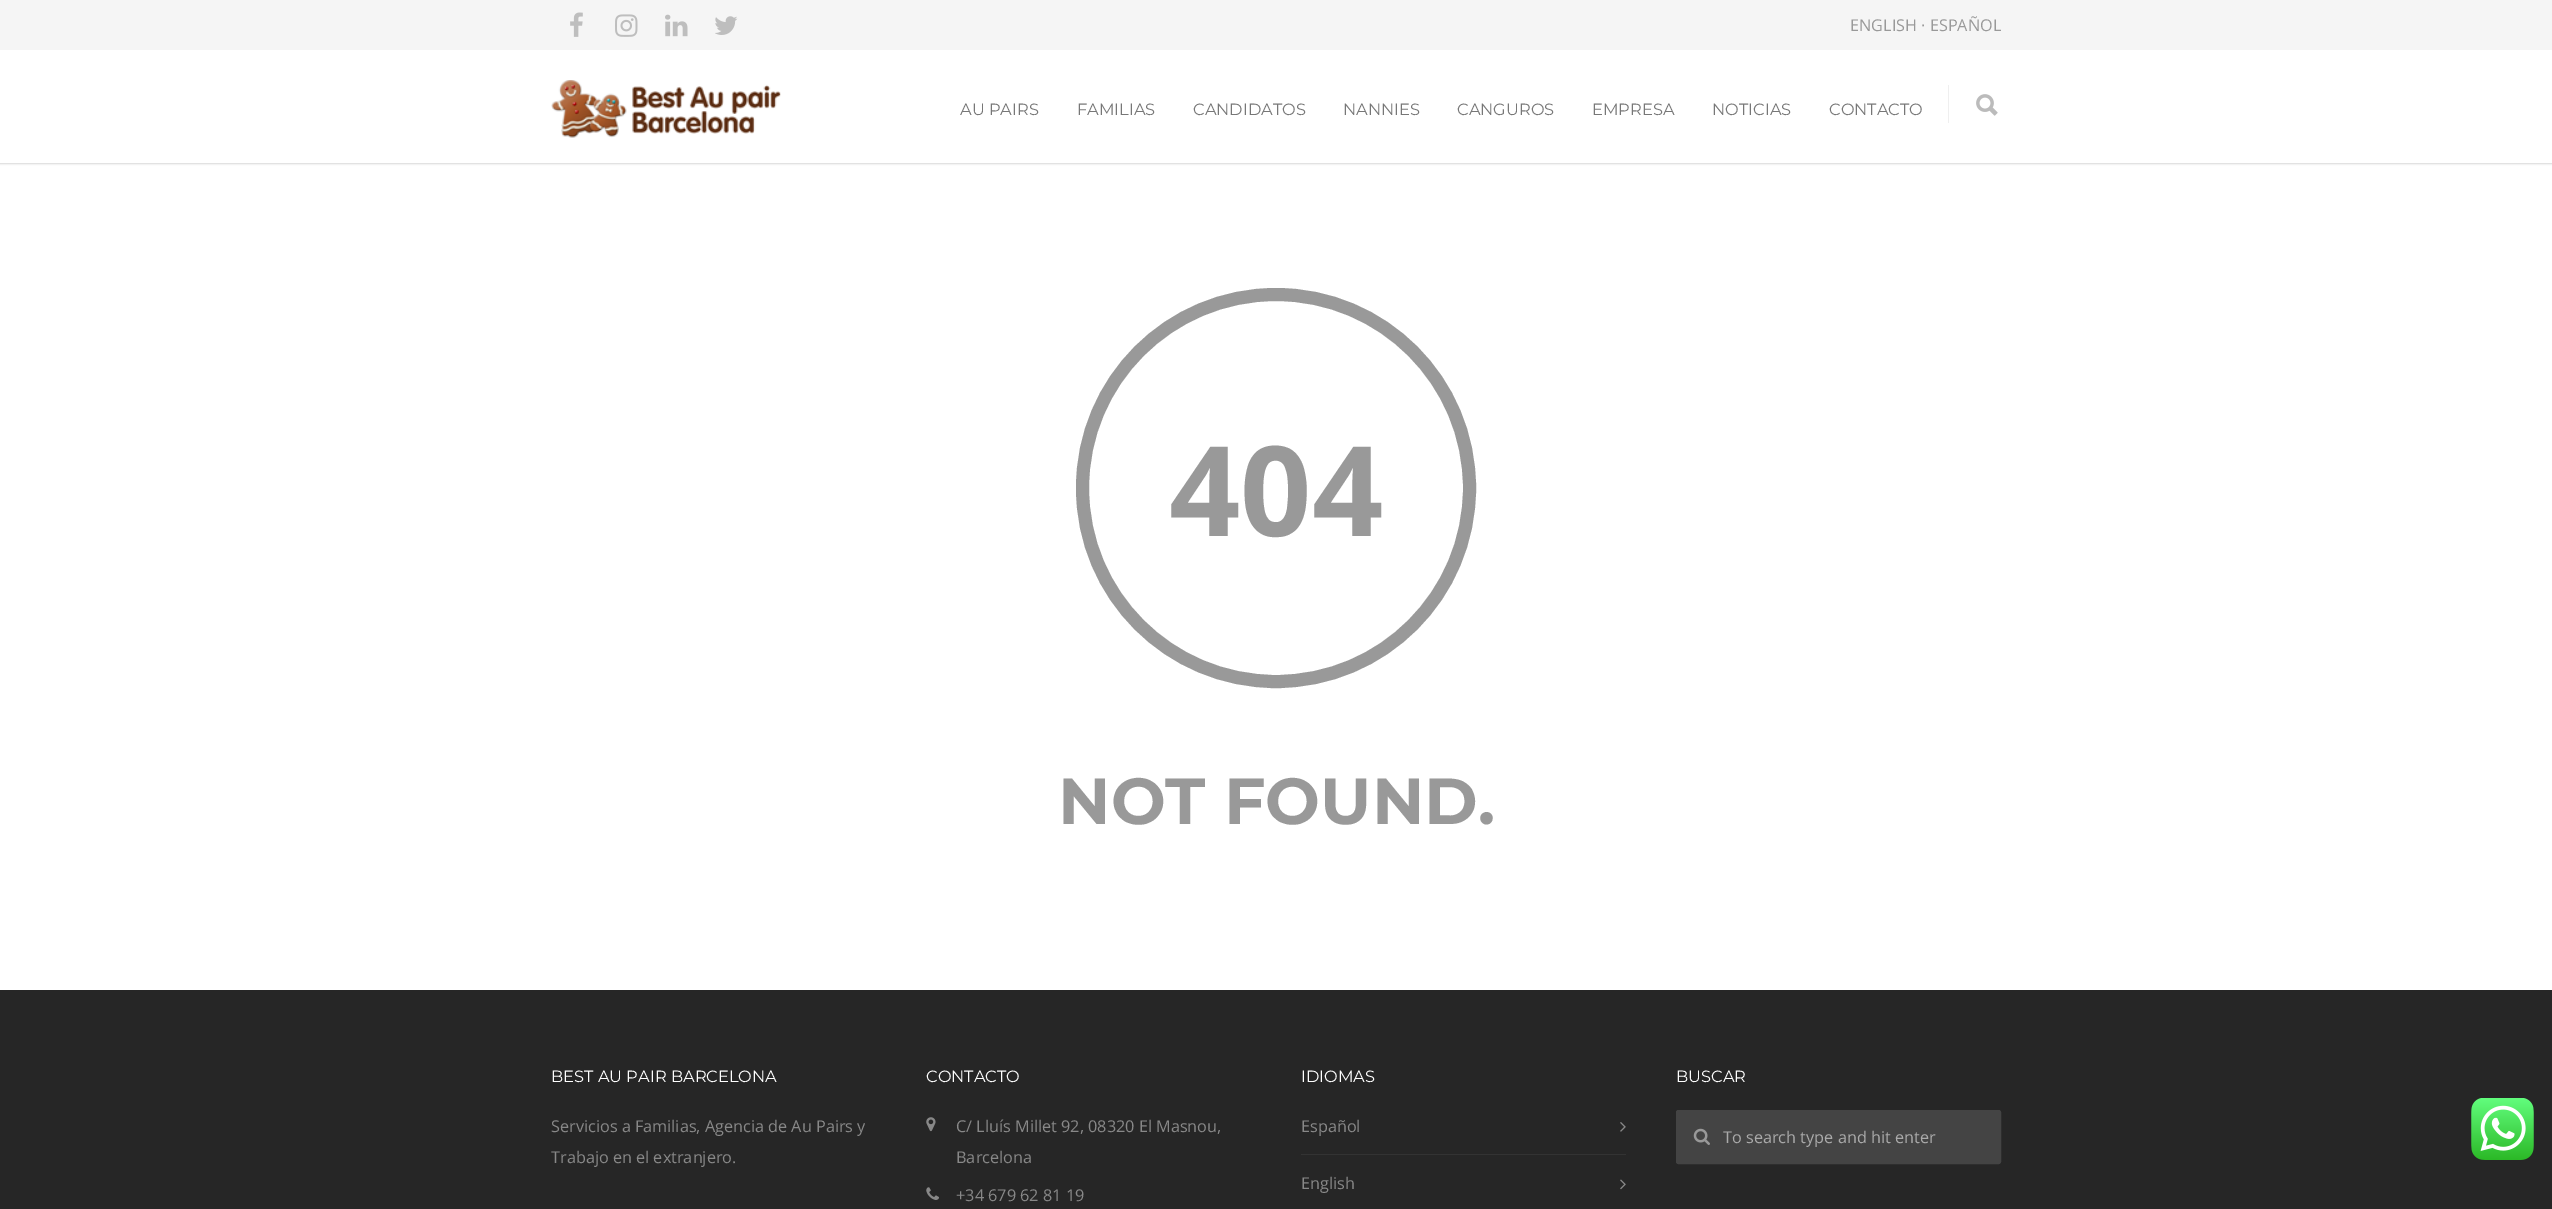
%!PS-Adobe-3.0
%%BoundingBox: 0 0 2552 1209
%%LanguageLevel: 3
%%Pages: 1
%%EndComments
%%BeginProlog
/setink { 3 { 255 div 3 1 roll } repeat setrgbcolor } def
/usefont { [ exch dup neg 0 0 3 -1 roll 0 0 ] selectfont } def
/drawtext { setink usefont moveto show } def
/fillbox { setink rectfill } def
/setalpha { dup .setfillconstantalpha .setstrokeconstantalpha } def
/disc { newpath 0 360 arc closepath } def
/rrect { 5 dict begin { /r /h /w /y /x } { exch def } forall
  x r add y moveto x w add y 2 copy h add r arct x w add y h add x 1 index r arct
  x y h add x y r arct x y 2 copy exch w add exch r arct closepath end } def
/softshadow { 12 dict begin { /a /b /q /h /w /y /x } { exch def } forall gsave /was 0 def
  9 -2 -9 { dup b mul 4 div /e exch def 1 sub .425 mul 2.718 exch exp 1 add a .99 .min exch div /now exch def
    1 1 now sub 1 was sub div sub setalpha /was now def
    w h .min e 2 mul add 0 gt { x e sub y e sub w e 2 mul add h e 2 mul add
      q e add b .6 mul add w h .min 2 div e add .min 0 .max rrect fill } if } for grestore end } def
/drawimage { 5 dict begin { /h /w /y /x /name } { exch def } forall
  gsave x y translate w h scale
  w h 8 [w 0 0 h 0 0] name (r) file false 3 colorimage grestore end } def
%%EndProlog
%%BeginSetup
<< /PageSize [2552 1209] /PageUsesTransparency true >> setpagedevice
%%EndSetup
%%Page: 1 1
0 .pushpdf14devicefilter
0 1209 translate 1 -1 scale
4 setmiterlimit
0 0 2552 1209 255 255 255 fillbox
0 0 0 setink
-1 49 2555 115 0 1 0.16 softshadow
0 0 2552 50 245 245 245 fillbox
(assets/img1.rgb) 570 12 13 25 drawimage
(assets/img2.rgb) 615 14 23 23 drawimage
(assets/img3.rgb) 665 14 23 23 drawimage
(assets/img4.rgb) 715 16 23 19 drawimage
(ENGLISH · ESPAÑOL) 1850 31 /OpenSans-Regular 16.25 153 153 153 drawtext
0 50 2552 113 255 255 255 fillbox
(assets/img5.rgb) 551 80 230 58 drawimage
(AU PAIRS) 960 115 /Montserrat-Regular 16.25 119 119 119 drawtext
(FAMILIAS) 1077 115 /Montserrat-Regular 16.25 119 119 119 drawtext
(CANDIDATOS) 1193 115 /Montserrat-Regular 16.25 119 119 119 drawtext
(NANNIES) 1343 115 /Montserrat-Regular 16.25 119 119 119 drawtext
(CANGUROS) 1457 115 /Montserrat-Regular 16.25 119 119 119 drawtext
(EMPRESA) 1592 115 /Montserrat-Regular 16.25 119 119 119 drawtext
(NOTICIAS) 1712 115 /Montserrat-Regular 16.25 119 119 119 drawtext
(CONTACTO) 1829 115 /Montserrat-Regular 16.25 119 119 119 drawtext
1948 85 1 38 239 239 239 fillbox
(assets/img6.rgb) 1976 94 22 22 drawimage
153 153 153 setink
13 setlinewidth
1276 488 193.5 disc stroke
(404) 1169 536 /OpenSans-Bold 125 153 153 153 drawtext
(NOT FOUND.) 1058 824 /Montserrat-Bold 65 153 153 153 drawtext
0 990 2552 219 38 38 38 fillbox
(BEST AU PAIR BARCELONA) 551 1082 /Montserrat-Regular 16.25 255 255 255 drawtext
(Servicios a Familias, Agencia de Au Pairs y) 551 1132 /OpenSans-Regular 16.25 136 136 136 drawtext
(Trabajo en el extranjero.) 551 1163 /OpenSans-Regular 16.25 136 136 136 drawtext
(CONTACTO) 926 1082 /Montserrat-Regular 16.25 255 255 255 drawtext
(assets/img7.rgb) 926 1117 10 15 drawimage
(C/ Lluís Millet 92, 08320 El Masnou,) 956 1132 /OpenSans-Regular 16.25 136 136 136 drawtext
(Barcelona) 956 1163 /OpenSans-Regular 16.25 136 136 136 drawtext
(assets/img8.rgb) 926 1187 13 13 drawimage
(+34 679 62 81 19) 956 1201 /OpenSans-Regular 16.25 136 136 136 drawtext
(IDIOMAS) 1301 1082 /Montserrat-Regular 16.25 255 255 255 drawtext
1301 1154 325 1 51 51 51 fillbox
(Español) 1301 1132 /OpenSans-Regular 16.25 136 136 136 drawtext
(assets/img9.rgb) 1620 1122 6 10 drawimage
(English) 1301 1189 /OpenSans-Regular 16.25 136 136 136 drawtext
(assets/img10.rgb) 1620 1179 6 11 drawimage
(BUSCAR) 1676 1082 /Montserrat-Regular 16.25 255 255 255 drawtext
68 68 68 setink
1676.5 1110.5 324 53 2 rrect gsave fill grestore
1 setlinewidth
stroke
(assets/img11.rgb) 1693 1128 17 17 drawimage
(To search type and hit enter) 1723 1143 /OpenSans-Regular 16.25 170 170 170 drawtext
(assets/img12.rgb) 2471 1098 63 62 drawimage
.poppdf14devicefilter showpage
%%EOF
